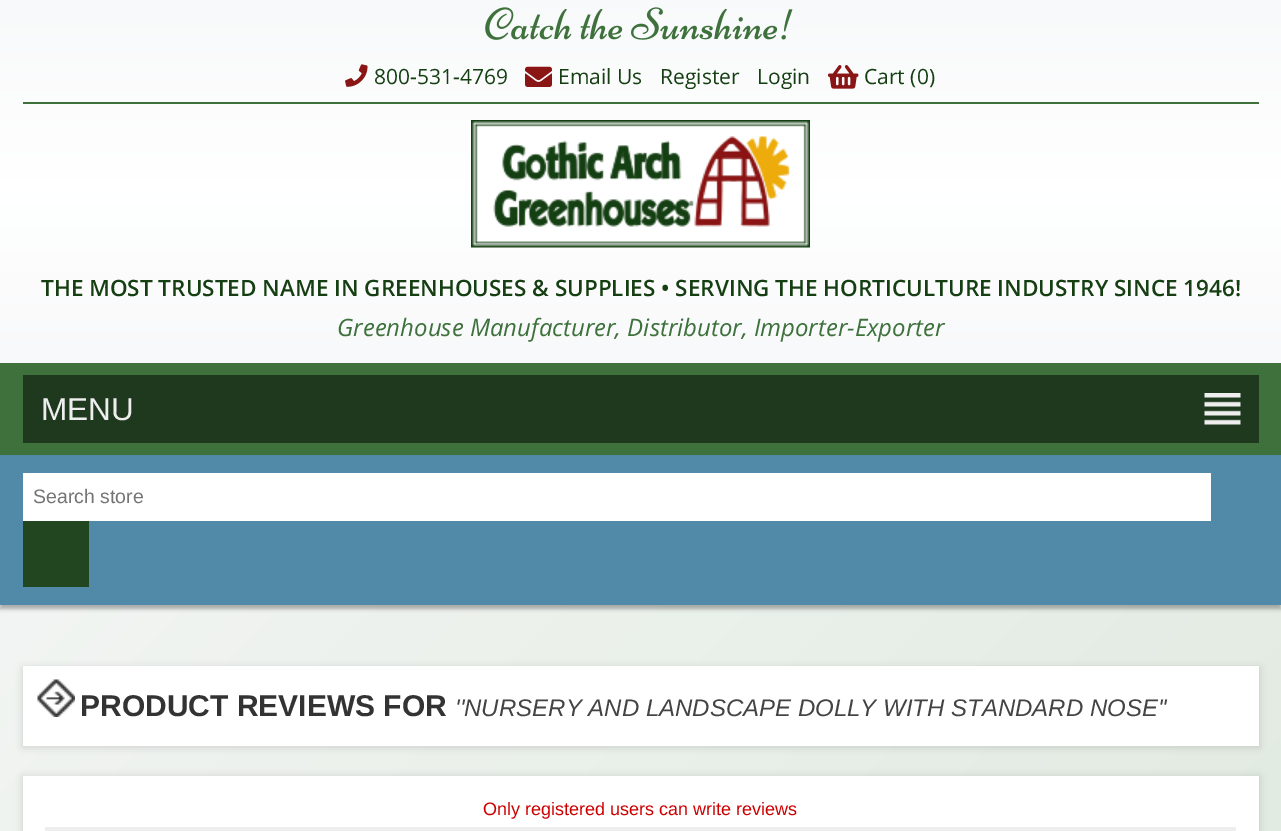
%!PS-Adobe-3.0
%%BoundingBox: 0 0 1281 831
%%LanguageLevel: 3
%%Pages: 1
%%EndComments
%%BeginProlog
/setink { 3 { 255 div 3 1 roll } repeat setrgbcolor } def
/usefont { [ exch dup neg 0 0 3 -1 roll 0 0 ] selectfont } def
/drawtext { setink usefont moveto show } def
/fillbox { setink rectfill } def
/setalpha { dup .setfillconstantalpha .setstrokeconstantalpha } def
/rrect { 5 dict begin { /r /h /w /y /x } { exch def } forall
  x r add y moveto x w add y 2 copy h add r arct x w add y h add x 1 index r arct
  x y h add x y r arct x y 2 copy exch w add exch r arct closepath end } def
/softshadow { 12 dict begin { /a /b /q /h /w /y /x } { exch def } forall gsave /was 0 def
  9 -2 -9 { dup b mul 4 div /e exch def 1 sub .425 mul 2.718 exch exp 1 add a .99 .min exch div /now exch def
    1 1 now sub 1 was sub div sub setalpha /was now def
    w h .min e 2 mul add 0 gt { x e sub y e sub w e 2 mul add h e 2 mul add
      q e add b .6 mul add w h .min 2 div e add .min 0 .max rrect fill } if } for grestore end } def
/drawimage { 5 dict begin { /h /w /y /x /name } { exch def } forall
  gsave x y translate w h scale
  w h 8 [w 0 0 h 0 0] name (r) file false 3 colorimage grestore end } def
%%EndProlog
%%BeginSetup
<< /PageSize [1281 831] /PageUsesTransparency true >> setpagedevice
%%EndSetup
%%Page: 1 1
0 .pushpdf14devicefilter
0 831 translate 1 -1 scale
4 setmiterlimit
0 0 1281 831 255 255 255 fillbox
gsave 0 605 moveto 1281 605 lineto 1281 831 lineto 0 831 lineto closepath clip newpath
<< /ShadingType 2 /ColorSpace /DeviceRGB /Coords [-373 373 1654 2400] /Extend [true true] /Function << /FunctionType 3 /Domain [0 1] /Functions [<< /FunctionType 2 /Domain [0 1] /C0 [0.973 0.976 0.98] /C1 [0.882 0.918 0.878] /N 1 >> << /FunctionType 2 /Domain [0 1] /C0 [0.882 0.918 0.878] /C1 [0.788 0.871 0.784] /N 1 >>] /Bounds [0.55] /Encode [0 1 0 1] >> >> shfill grestore
gsave 0 0 moveto 1281 0 lineto 1281 363 lineto 0 363 lineto closepath clip newpath
<< /ShadingType 2 /ColorSpace /DeviceRGB /Coords [641 363 641 0] /Extend [true true] /Function << /FunctionType 3 /Domain [0 1] /Functions [<< /FunctionType 2 /Domain [0 1] /C0 [0.973 0.976 0.98] /C1 [1 1 1] /N 1 >> << /FunctionType 2 /Domain [0 1] /C0 [1 1 1] /C1 [0.973 0.976 0.98] /N 1 >>] /Bounds [0.49] /Encode [0 1 0 1] >> >> shfill grestore
23 102 1236 2 62 113 59 fillbox
(assets/img1.rgb) 485 7 308 33 drawimage
(assets/img2.rgb) 345 64 23 23 drawimage
(800-531-4769) 374 84 /OpenSans-Regular 21 21 63 19 drawtext
(assets/img3.rgb) 525 66 27 21 drawimage
(Email Us) 558 84 /OpenSans-Regular 21 21 63 19 drawtext
(Register) 660 84 /OpenSans-Regular 21 21 63 19 drawtext
(Login) 757 84 /OpenSans-Regular 21 21 63 19 drawtext
(assets/img4.rgb) 828 65 31 24 drawimage
(Cart \(0\)) 864 84 /OpenSans-Regular 21 21 63 19 drawtext
(assets/img5.rgb) 471 120 339 128 drawimage
(THE MOST TRUSTED NAME IN GREENHOUSES & SUPPLIES • SERVING THE HORTICULTURE INDUSTRY SINCE 1946!) 41 296 /OpenSans-SemiBold 22.5 21 63 19 drawtext
(Greenhouse Manufacturer, Distributor, Importer-Exporter) 337 336 /OpenSans-Italic 24 62 113 59 drawtext
0 363 1281 92 62 113 59 fillbox
23 375 1236 68 31 57 30 fillbox
(assets/img6.rgb) 1204 393 37 32 drawimage
(MENU) 41 420 /LiberationSans-Regular 31.5 238 238 238 drawtext
0 0 0 setink
0 459 1281 150 0 2 0.3 softshadow
0 455 1281 150 81 137 169 fillbox
23 473 1188 48 255 255 255 fillbox
(Search store) 33 503 /LiberationSans-Regular 19.5 117 117 117 drawtext
23 521 66 66 34 70 31 fillbox
0 0 0 setink
23 668 1236 79 0 4 0.15 softshadow
23 666 1236 80 255 255 255 fillbox
(assets/img7.rgb) 37 679 38 38 drawimage
(PRODUCT REVIEWS FOR) 80 716 /LiberationSans-Bold 30 51 51 51 drawtext
(''NURSERY AND LANDSCAPE DOLLY WITH STANDARD NOSE'') 455 716 /LiberationSans-Italic 24 68 68 68 drawtext
0 0 0 setink
23 777 1236 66 0 4 0.15 softshadow
23 776 1236 55 255 255 255 fillbox
(Only registered users can write reviews) 483 815 /LiberationSans-Regular 18 204 0 0 drawtext
45 827 1191 4 238 238 238 fillbox
.poppdf14devicefilter showpage
%%EOF
